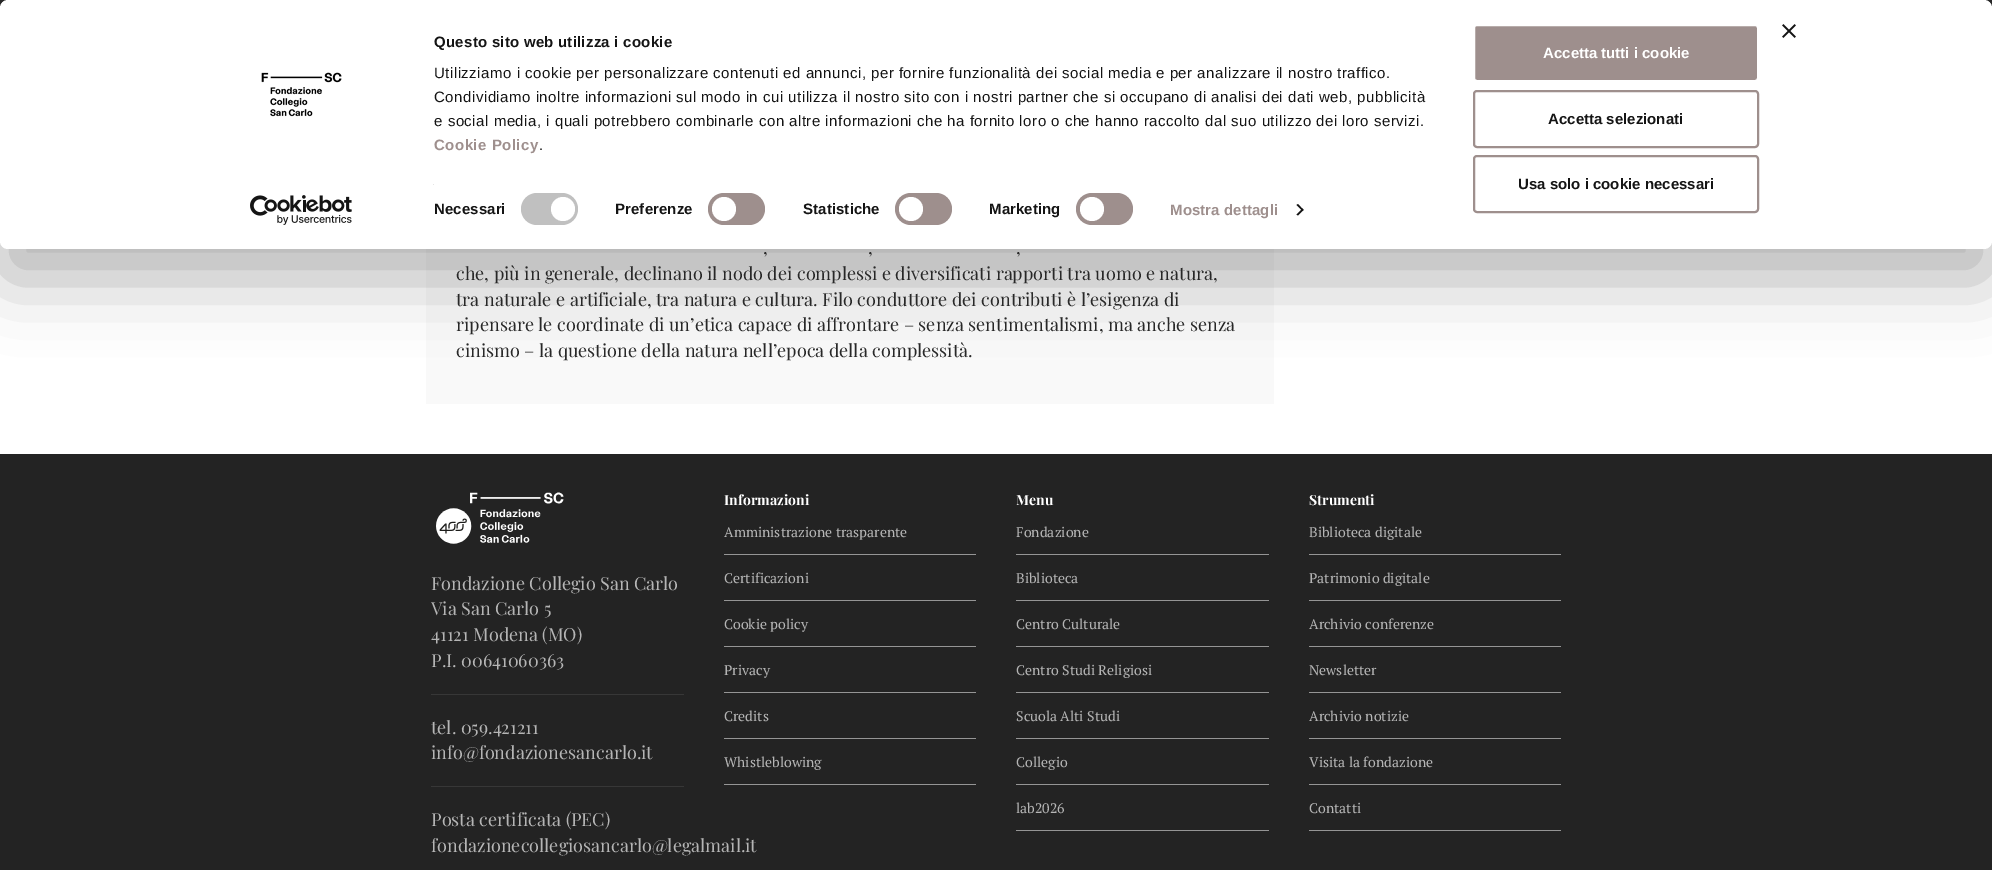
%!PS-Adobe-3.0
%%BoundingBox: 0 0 1992 870
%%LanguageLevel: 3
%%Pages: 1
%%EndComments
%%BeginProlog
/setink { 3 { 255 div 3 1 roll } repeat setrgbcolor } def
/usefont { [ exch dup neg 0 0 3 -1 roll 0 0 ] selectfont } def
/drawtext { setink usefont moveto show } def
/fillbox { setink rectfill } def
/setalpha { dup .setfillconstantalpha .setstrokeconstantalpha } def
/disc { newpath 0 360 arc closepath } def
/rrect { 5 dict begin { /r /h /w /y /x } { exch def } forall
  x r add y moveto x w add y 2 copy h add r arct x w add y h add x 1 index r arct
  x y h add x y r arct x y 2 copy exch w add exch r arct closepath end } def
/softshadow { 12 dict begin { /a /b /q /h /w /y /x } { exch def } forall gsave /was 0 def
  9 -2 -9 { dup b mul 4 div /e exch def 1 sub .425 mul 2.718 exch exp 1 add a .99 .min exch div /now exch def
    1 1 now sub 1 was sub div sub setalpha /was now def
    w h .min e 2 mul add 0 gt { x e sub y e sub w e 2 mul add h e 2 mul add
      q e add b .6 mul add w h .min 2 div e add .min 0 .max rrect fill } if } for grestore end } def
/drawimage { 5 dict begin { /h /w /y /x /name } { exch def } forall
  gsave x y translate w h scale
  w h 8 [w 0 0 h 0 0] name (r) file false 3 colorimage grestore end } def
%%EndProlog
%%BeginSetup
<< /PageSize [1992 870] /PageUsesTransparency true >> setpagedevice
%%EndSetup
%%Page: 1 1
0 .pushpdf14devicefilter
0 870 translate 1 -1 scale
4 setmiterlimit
0 0 1992 870 255 255 255 fillbox
0 0 1992 8 40 40 40 fillbox
426 249 848 155 249 249 249 fillbox
0 0 0 setink
0 30 1992 249 8 35 0.3 softshadow
255 255 255 setink
0 0 1992 249 8 rrect fill
(assets/img1.rgb) 1782 24 14 14 drawimage
(assets/img2.rgb) 261 72 81 45 drawimage
(assets/img3.rgb) 250 195 102 30 drawimage
/LiberationSans-Bold 15 usefont
20 20 20 setink
434 47 moveto 0.25 0 (Questo sito web utilizza i cookie) ashow
/LiberationSans-Regular 15 usefont
434 78 moveto 0.5 0 (Utilizziamo i cookie per personalizzare contenuti ed annunci, per fornire funzionalità dei social media e per analizzare il nostro traffico.) ashow
434 102 moveto 0.5 0 (Condividiamo inoltre informazioni sul modo in cui utilizza il nostro sito con i nostri partner che si occupano di analisi dei dati web, pubblicità) ashow
434 126 moveto 0.5 0 (e social media, i quali potrebbero combinarle con altre informazioni che ha fornito loro o che hanno raccolto dal suo utilizzo dei loro servizi.) ashow
/LiberationSans-Bold 15 usefont
158 143 141 setink
434 150 moveto 0.5 0 (Cookie Policy) ashow
/LiberationSans-Regular 15 usefont
20 20 20 setink
539 150 moveto 0.5 0 (.) ashow
433 184 1 1 229 229 229 fillbox
/LiberationSans-Bold 15 usefont
20 20 20 setink
434 214 moveto 0.1 0 (Necessari) ashow
192 192 192 setink
521 193 57 32 16 rrect fill
255 255 255 setink
563 209 12 disc fill
20 20 20 setink
615 214 moveto 0.1 0 (Preferenze) ashow
158 143 141 setink
708 193 57 32 16 rrect fill
255 255 255 setink
724 209 12 disc fill
20 20 20 setink
803 214 moveto 0.1 0 (Statistiche) ashow
158 143 141 setink
895 193 57 32 16 rrect fill
255 255 255 setink
911 209 12 disc fill
20 20 20 setink
989 214 moveto 0.1 0 (Marketing) ashow
158 143 141 setink
1076 193 57 32 16 rrect fill
255 255 255 setink
1092 209 12 disc fill
158 143 141 setink
1170 215 moveto 0.1 0 (Mostra dettagli) ashow
20 20 20 setink
1298 204 moveto 1303.5 210 lineto 1302.5 211 lineto 1296.5 205 lineto closepath fill
1302.5 208.5 moveto 1303.5 210 lineto 1298 215.5 lineto 1296.5 214.5 lineto closepath fill
158 143 141 setink
1474 25 284 56 3 rrect gsave fill grestore
255 255 255 setink
2 setlinewidth
stroke
(Accetta tutti i cookie) 1543 58 /LiberationSans-Bold 15 255 255 255 drawtext
158 143 141 setink
1474 91 284 56 3 rrect stroke
(Accetta selezionati) 1548 124 /LiberationSans-Bold 15 20 20 20 drawtext
158 143 141 setink
1474 156 284 56 3 rrect stroke
(Usa solo i cookie necessari) 1518 189 /LiberationSans-Bold 15 20 20 20 drawtext
(,) 763 254 /PlayfairDisplay-Regular 18 40 40 40 drawtext
(,) 868 254 /PlayfairDisplay-Regular 18 40 40 40 drawtext
(,) 1016 254 /PlayfairDisplay-Regular 18 40 40 40 drawtext
(che, più in generale, declinano il nodo dei complessi e diversificati rapporti tra uomo e natura,) 456 280 /PlayfairDisplay-Regular 18 40 40 40 drawtext
(tra naturale e artificiale, tra natura e cultura. Filo conduttore dei contributi è l’esigenza di) 456 306 /PlayfairDisplay-Regular 18 40 40 40 drawtext
(ripensare le coordinate di un’etica capace di affrontare – senza sentimentalismi, ma anche senza) 456 331 /PlayfairDisplay-Regular 18 40 40 40 drawtext
(cinismo – la questione della natura nell’epoca della complessità.) 456 357 /PlayfairDisplay-Regular 18 40 40 40 drawtext
0 454 1992 416 35 35 35 fillbox
(assets/img4.rgb) 436 492 128 52 drawimage
(Fondazione Collegio San Carlo) 431 590 /PlayfairDisplay-Regular 18 181 181 181 drawtext
(Via San Carlo 5) 431 615 /PlayfairDisplay-Regular 18 181 181 181 drawtext
(41121 Modena \(MO\)) 431 641 /PlayfairDisplay-Regular 18 181 181 181 drawtext
(P.I. 00641060363) 431 667 /PlayfairDisplay-Regular 18 181 181 181 drawtext
431 694 253 1 55 55 55 fillbox
(tel. 059.421211) 431 734 /PlayfairDisplay-Regular 18 181 181 181 drawtext
(info@fondazionesancarlo.it) 431 759 /PlayfairDisplay-Regular 18 181 181 181 drawtext
431 786 253 1 55 55 55 fillbox
(Posta certificata \(PEC\)) 431 826 /PlayfairDisplay-Regular 18 181 181 181 drawtext
(fondazionecollegiosancarlo@legalmail.it) 431 852 /PlayfairDisplay-Regular 18 181 181 181 drawtext
(Informazioni) 724 505 /PlayfairDisplay-Bold 14 255 255 255 drawtext
724 554 252 1 149 149 149 fillbox
(Amministrazione trasparente) 724 537 /PTSerif-Regular 14 181 181 181 drawtext
724 600 252 1 149 149 149 fillbox
(Certificazioni) 724 583 /PTSerif-Regular 14 181 181 181 drawtext
724 646 252 1 149 149 149 fillbox
(Cookie policy) 724 629 /PTSerif-Regular 14 181 181 181 drawtext
724 692 252 1 149 149 149 fillbox
(Privacy) 724 675 /PTSerif-Regular 14 181 181 181 drawtext
724 738 252 1 149 149 149 fillbox
(Credits) 724 721 /PTSerif-Regular 14 181 181 181 drawtext
724 784 252 1 149 149 149 fillbox
(Whistleblowing) 724 767 /PTSerif-Regular 14 181 181 181 drawtext
(Menu) 1016 505 /PlayfairDisplay-Bold 14 255 255 255 drawtext
1016 554 253 1 149 149 149 fillbox
(Fondazione) 1016 537 /PTSerif-Regular 14 181 181 181 drawtext
1016 600 253 1 149 149 149 fillbox
(Biblioteca) 1016 583 /PTSerif-Regular 14 181 181 181 drawtext
1016 646 253 1 149 149 149 fillbox
(Centro Culturale) 1016 629 /PTSerif-Regular 14 181 181 181 drawtext
1016 692 253 1 149 149 149 fillbox
(Centro Studi Religiosi) 1016 675 /PTSerif-Regular 14 181 181 181 drawtext
1016 738 253 1 149 149 149 fillbox
(Scuola Alti Studi) 1016 721 /PTSerif-Regular 14 181 181 181 drawtext
1016 784 253 1 149 149 149 fillbox
(Collegio) 1016 767 /PTSerif-Regular 14 181 181 181 drawtext
1016 830 253 1 149 149 149 fillbox
(lab2026) 1016 813 /PTSerif-Regular 14 181 181 181 drawtext
(Strumenti) 1309 505 /PlayfairDisplay-Bold 14 255 255 255 drawtext
1309 554 252 1 149 149 149 fillbox
(Biblioteca digitale) 1309 537 /PTSerif-Regular 14 181 181 181 drawtext
1309 600 252 1 149 149 149 fillbox
(Patrimonio digitale) 1309 583 /PTSerif-Regular 14 181 181 181 drawtext
1309 646 252 1 149 149 149 fillbox
(Archivio conferenze) 1309 629 /PTSerif-Regular 14 181 181 181 drawtext
1309 692 252 1 149 149 149 fillbox
(Newsletter) 1309 675 /PTSerif-Regular 14 181 181 181 drawtext
1309 738 252 1 149 149 149 fillbox
(Archivio notizie) 1309 721 /PTSerif-Regular 14 181 181 181 drawtext
1309 784 252 1 149 149 149 fillbox
(Visita la fondazione) 1309 767 /PTSerif-Regular 14 181 181 181 drawtext
1309 830 252 1 149 149 149 fillbox
(Contatti) 1309 813 /PTSerif-Regular 14 181 181 181 drawtext
.poppdf14devicefilter showpage
%%EOF
